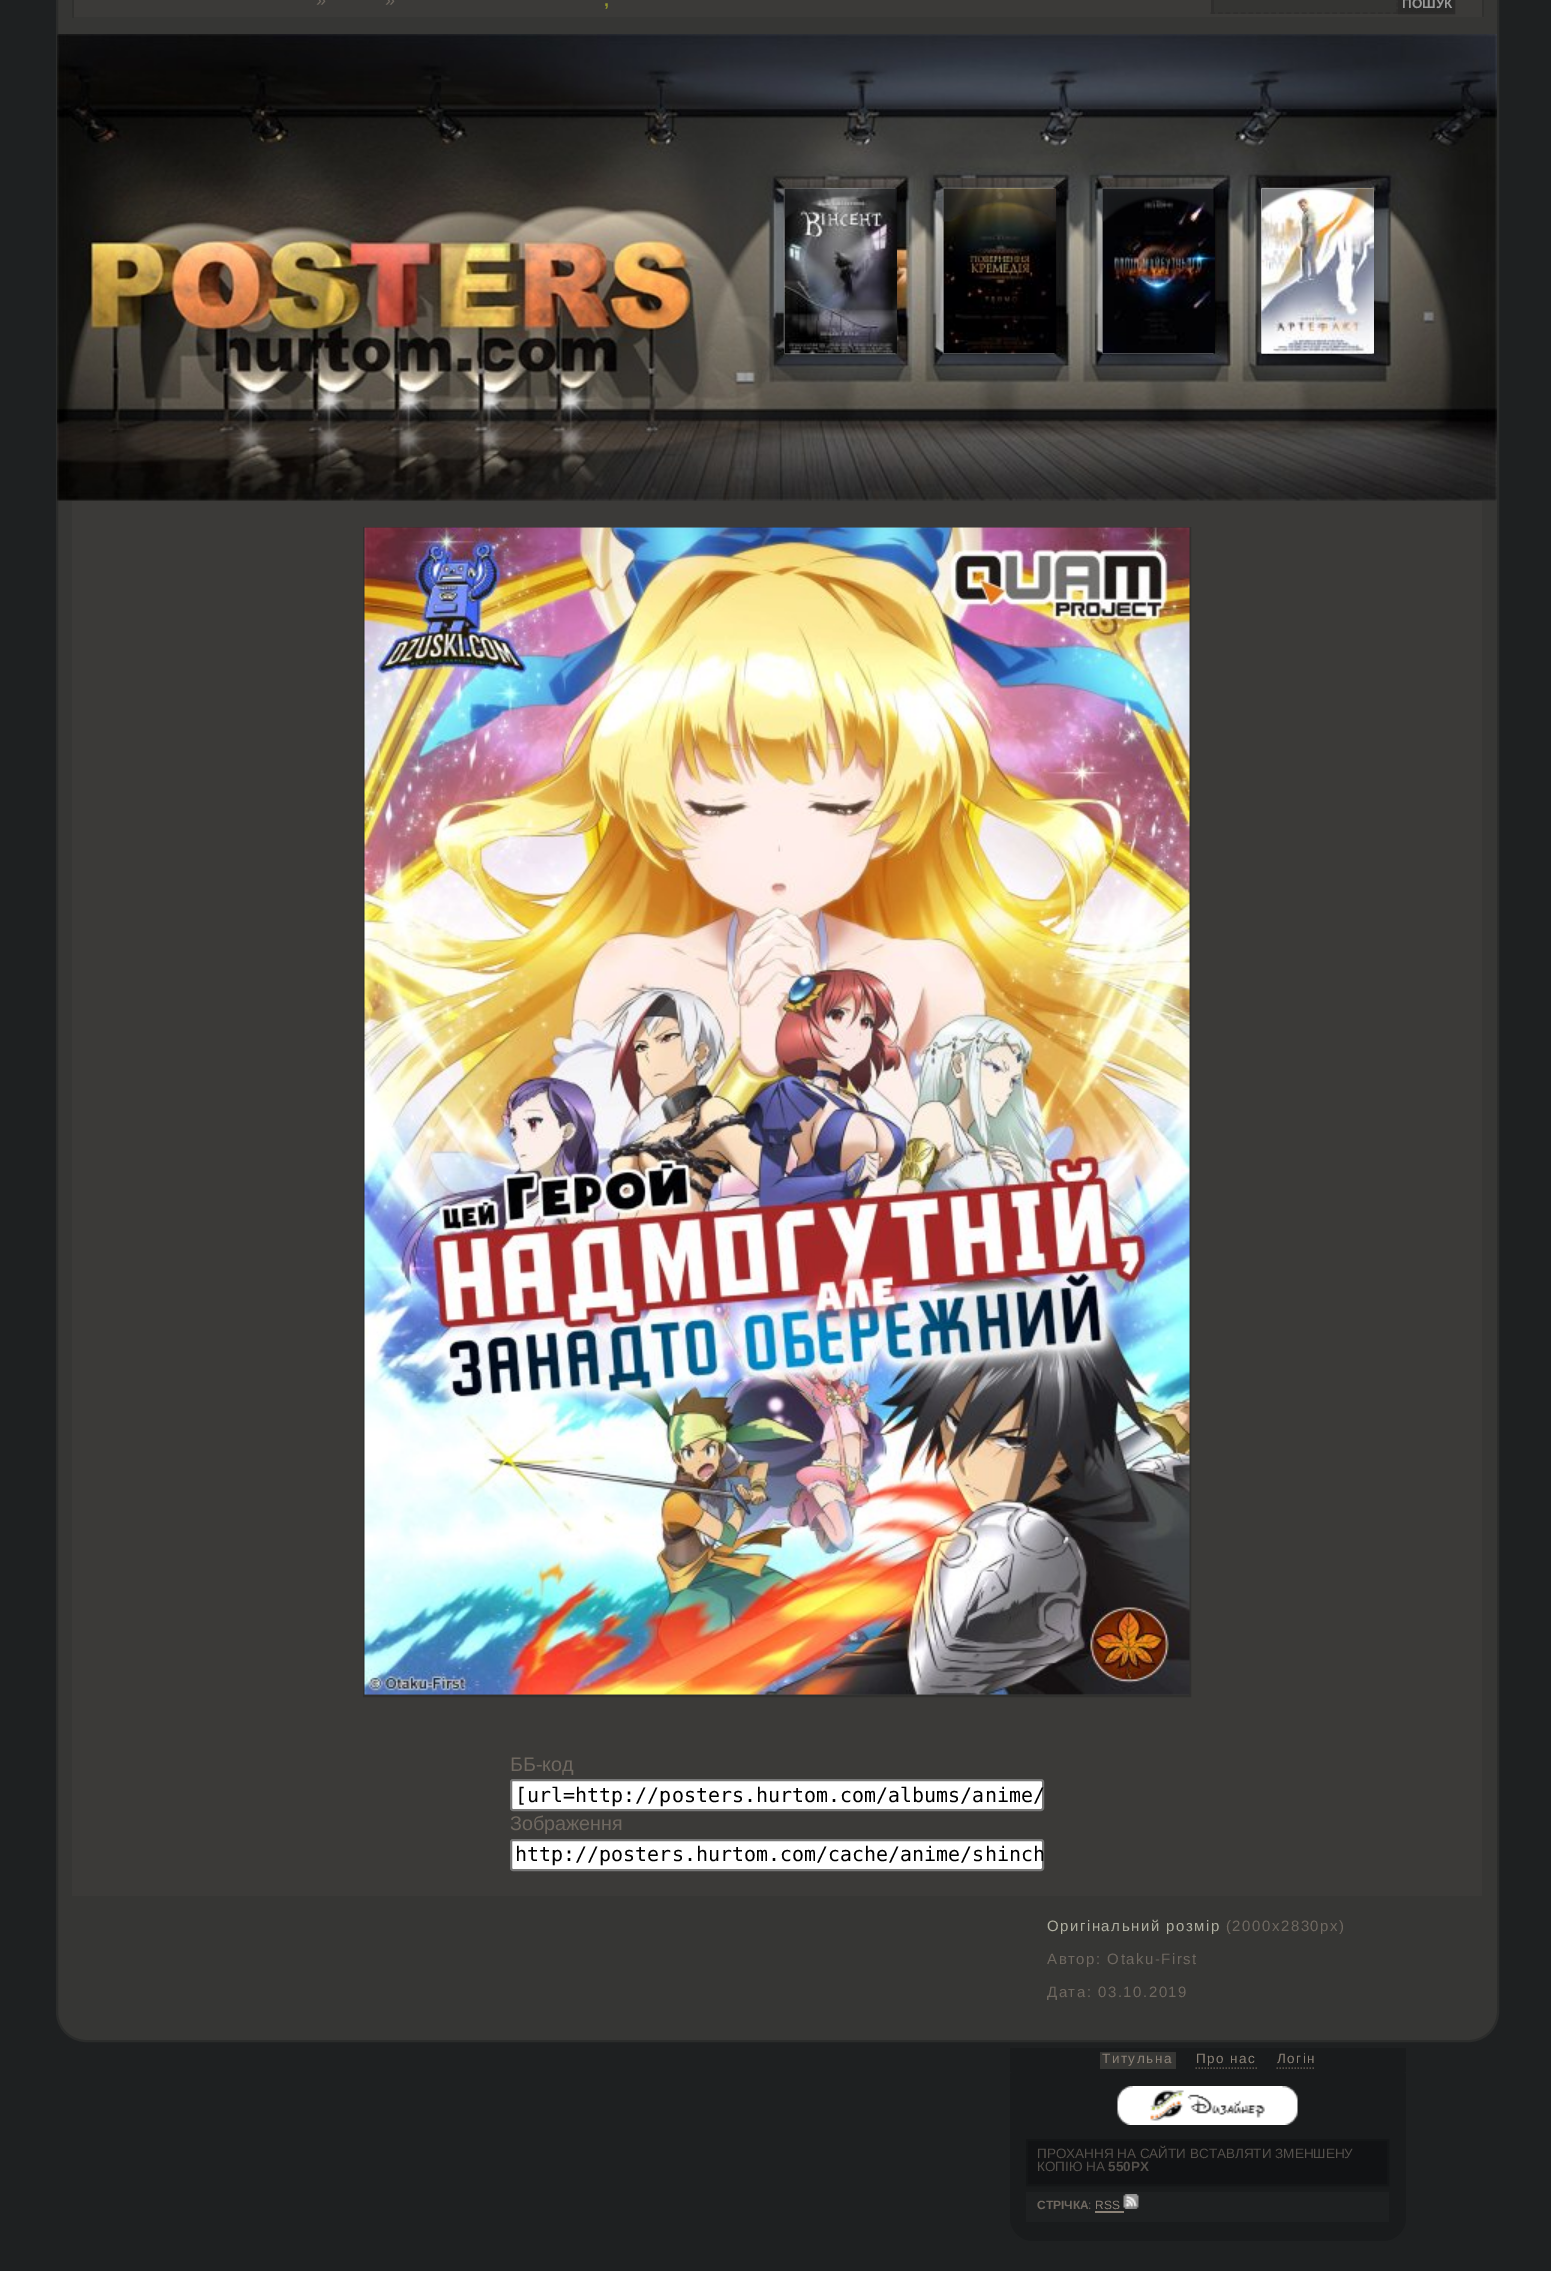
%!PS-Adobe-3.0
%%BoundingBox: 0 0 1551 2271
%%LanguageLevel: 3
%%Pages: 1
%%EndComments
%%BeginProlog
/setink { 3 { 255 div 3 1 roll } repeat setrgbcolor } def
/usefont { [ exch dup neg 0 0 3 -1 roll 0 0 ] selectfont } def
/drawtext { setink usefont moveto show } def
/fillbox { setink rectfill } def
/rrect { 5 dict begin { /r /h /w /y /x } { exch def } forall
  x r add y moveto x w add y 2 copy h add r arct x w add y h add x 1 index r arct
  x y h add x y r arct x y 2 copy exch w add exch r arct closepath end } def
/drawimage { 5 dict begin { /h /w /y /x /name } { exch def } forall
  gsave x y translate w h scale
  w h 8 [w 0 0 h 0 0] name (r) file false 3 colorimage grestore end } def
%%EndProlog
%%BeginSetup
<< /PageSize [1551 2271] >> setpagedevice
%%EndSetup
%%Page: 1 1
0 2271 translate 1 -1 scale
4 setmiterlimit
0 0 1551 2271 30 32 33 fillbox
54 54 52 setink
61 -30 moveto 1494 -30 lineto 1496 -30 1498 -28 1498 -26 curveto 1498 2012 lineto 1498 2028 1485 2041 1469 2041 curveto 86 2041 lineto 70 2041 57 2028 57 2012 curveto 57 -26 lineto 57 -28 59 -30 61 -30 curveto closepath gsave fill grestore
43 44 43 setink
2 setlinewidth
stroke
74 0 1408 17 59 58 56 fillbox
1482 0 2 18 48 48 46 fillbox
1482 17 2 1 56 55 53 fillbox
72 0 2 18 48 48 46 fillbox
(») 316 6 /LiberationSans-Regular 18 111 104 96 drawtext
(») 385 6 /LiberationSans-Regular 18 111 104 96 drawtext
(,) 604 6 /LiberationSans-Bold 18 145 149 44 drawtext
1214 0 184 14 52 52 50 fillbox
47 46 45 setink
1.5 setlinewidth
[4.5 2] 0 setdash
1397 -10.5 moveto 1397 13.5 lineto stroke
[4.5 3.12] 0 setdash
1210.5 13 moveto 1398 13 lineto stroke
1211 0 3 14 47 46 45 fillbox
41 41 40 setink
1399 -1 moveto 1454 -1 lineto 1454 13 lineto 1399 13 lineto closepath gsave fill grestore
43 42 41 setink
2 setlinewidth
[] 0 setdash
stroke
(ПОШУК) 1402 8 /LiberationSans-Bold 13.5 153 153 153 drawtext
(assets/img1.rgb) 57 34 1440 467 drawimage
(assets/img2.rgb) 784 188 113 166 drawimage
(assets/img3.rgb) 943 188 113 166 drawimage
(assets/img4.rgb) 1102 188 113 166 drawimage
(assets/img5.rgb) 1261 188 113 166 drawimage
(assets/img6.rgb) 784 188 591 34 drawimage
72 501 1410 1395 59 58 56 fillbox
48 48 46 setink
364 528 826 1168 rectstroke
(assets/img7.rgb) 364 527 826 1168 drawimage
(ББ-код) 510 1771 /LiberationSans-Regular 19.75 111 104 96 drawtext
255 255 255 setink
511 1780 532 30 2 rrect gsave fill grestore
118 118 118 setink
stroke
([url=http://posters.hurtom.com/albums/anime/) 515 1802 /DejaVuSansMono-Regular 20 0 0 0 drawtext
(Зображення) 510 1830 /LiberationSans-Regular 19.75 111 104 96 drawtext
255 255 255 setink
511 1840 532 30 2 rrect gsave fill grestore
118 118 118 setink
stroke
(http://posters.hurtom.com/cache/anime/shinch) 515 1861 /DejaVuSansMono-Regular 20 0 0 0 drawtext
/LiberationSans-Regular 15 usefont
176 176 161 setink
1047 1931 moveto 1.5 0 (Оригінальний розмір) ashow
111 104 96 setink
1226 1931 moveto 1.5 0 (\(2000x2830px\)) ashow
1047 1964 moveto 1.5 0 (Автор: Otaku-First) ashow
1047 1997 moveto 1.5 0 (Дата: 03.10.2019) ashow
1010 2048 396 24 25 27 28 fillbox
1100 2052 76 17 54 54 52 fillbox
/LiberationSans-Regular 13.5 usefont
140 130 119 setink
1102 2063 moveto 1.5 0 (Титульна) ashow
1196 2063 moveto 1.5 0 (Про нас) ashow
89 82 75 setink
1.5 setlinewidth
[1.5 1.5] 0 setdash
1195.5 2068 moveto 1257 2068 lineto stroke
140 130 119 setink
1277 2063 moveto 1.5 0 (Логін) ashow
89 82 75 setink
1276.5 2068 moveto 1315.5 2068 lineto stroke
25 27 28 setink
1013 2072 moveto 1403 2072 lineto 1404.5 2072 1406 2073.5 1406 2075 curveto 1406 2218 lineto 1406 2230.5 1395.5 2241 1383 2241 curveto 1033 2241 lineto 1020.5 2241 1010 2230.5 1010 2218 curveto 1010 2075 lineto 1010 2073.5 1011.5 2072 1013 2072 curveto closepath fill
(assets/img8.rgb) 1117 2086 181 39 drawimage
17 18 20 setink
1027 2140 moveto 1388 2140 lineto 1388 2185 lineto 1027 2185 lineto closepath gsave fill grestore
20 22 23 setink
2 setlinewidth
[] 0 setdash
stroke
(ПРОХАННЯ НА САЙТИ ВСТАВЛЯТИ ЗМЕНШЕНУ) 1037 2158 /LiberationSans-Regular 13.5 84 80 75 drawtext
(КОПІЮ НА) 1037 2171 /LiberationSans-Regular 13.5 84 80 75 drawtext
(550PX) 1108 2171 /LiberationSans-Bold 13.5 84 80 75 drawtext
1026 2192 363 30 30 32 33 fillbox
(СТРІЧКА) 1037 2209 /LiberationSans-Bold 12 111 104 96 drawtext
(:) 1088 2209 /LiberationSans-Regular 12 111 104 96 drawtext
(RSS) 1095 2209 /LiberationSans-Regular 12 140 130 119 drawtext
1095 2211 29 2 140 130 119 fillbox
(assets/img9.rgb) 1123 2194 16 15 drawimage
showpage
%%EOF
